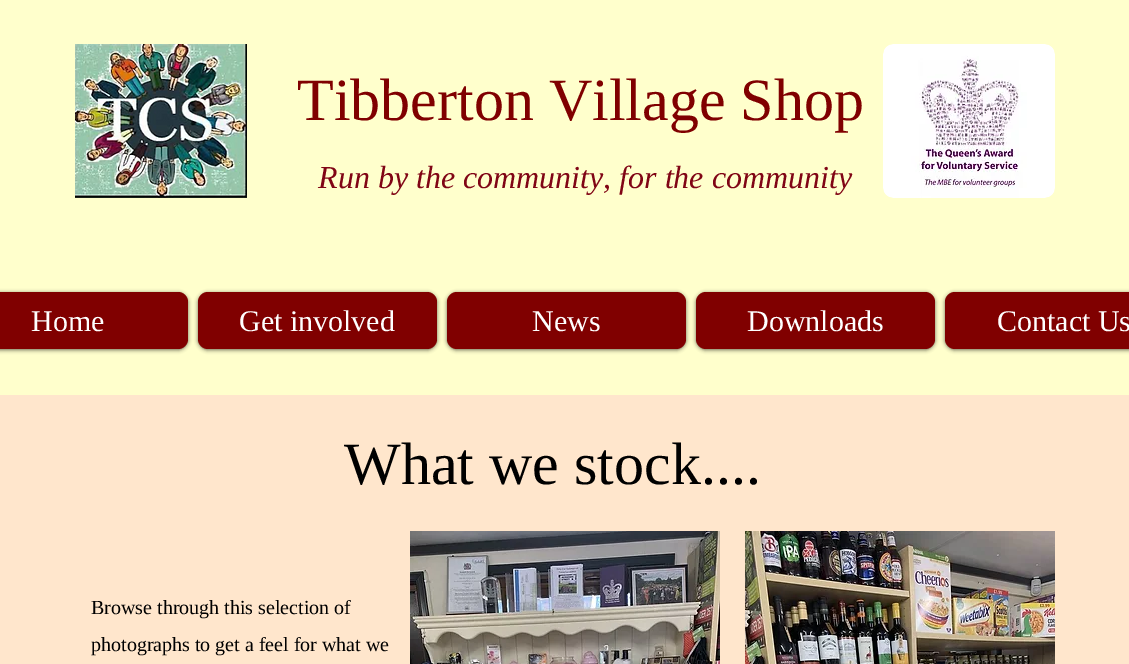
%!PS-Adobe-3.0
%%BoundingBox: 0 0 1129 664
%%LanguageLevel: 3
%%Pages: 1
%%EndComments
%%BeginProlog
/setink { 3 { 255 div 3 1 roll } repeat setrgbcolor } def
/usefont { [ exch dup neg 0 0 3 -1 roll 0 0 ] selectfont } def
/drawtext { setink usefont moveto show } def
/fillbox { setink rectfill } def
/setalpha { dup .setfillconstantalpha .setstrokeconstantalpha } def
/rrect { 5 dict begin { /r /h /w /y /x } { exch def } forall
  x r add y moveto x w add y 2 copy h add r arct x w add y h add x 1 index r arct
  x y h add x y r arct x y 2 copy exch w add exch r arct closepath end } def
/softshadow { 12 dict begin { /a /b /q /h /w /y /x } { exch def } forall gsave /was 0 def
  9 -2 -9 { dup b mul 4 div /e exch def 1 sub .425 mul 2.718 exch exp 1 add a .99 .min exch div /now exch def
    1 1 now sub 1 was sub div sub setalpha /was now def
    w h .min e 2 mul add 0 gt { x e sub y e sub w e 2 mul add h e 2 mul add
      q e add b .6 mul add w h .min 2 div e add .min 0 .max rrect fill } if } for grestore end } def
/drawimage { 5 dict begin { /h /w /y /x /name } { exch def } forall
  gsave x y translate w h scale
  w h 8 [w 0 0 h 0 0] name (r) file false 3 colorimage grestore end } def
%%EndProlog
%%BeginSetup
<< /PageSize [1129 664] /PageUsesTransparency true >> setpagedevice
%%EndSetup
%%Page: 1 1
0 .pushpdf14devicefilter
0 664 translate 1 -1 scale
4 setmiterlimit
0 0 1129 664 255 255 204 fillbox
(assets/img1.rgb) 75 44 172 154 drawimage
(Tibberton Village Shop) 297 120 /LiberationSerif-Regular 60 128 0 0 drawtext
(assets/img2.rgb) 883 44 172 154 drawimage
(Run by the community, for the community) 318 188 /LiberationSerif-Italic 32 128 5 21 drawtext
0 0 0 setink
-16 293 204 57 10 2 0.6 softshadow
128 0 0 setink
-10 292 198 57 10 rrect fill
(Home) 31 331 /LiberationSerif-Regular 30 255 255 255 drawtext
0 0 0 setink
198 293 239 57 10 2 0.6 softshadow
128 0 0 setink
198 292 239 57 10 rrect fill
(Get involved) 239 331 /LiberationSerif-Regular 30 255 255 255 drawtext
0 0 0 setink
447 293 239 57 10 2 0.6 softshadow
128 0 0 setink
447 292 239 57 10 rrect fill
(News) 532 331 /LiberationSerif-Regular 30 255 255 255 drawtext
0 0 0 setink
696 293 239 57 10 2 0.6 softshadow
128 0 0 setink
696 292 239 57 10 rrect fill
(Downloads) 747 331 /LiberationSerif-Regular 30 255 255 255 drawtext
0 0 0 setink
945 293 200 57 10 2 0.6 softshadow
128 0 0 setink
945 292 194 57 10 rrect fill
(Contact Us) 997 331 /LiberationSerif-Regular 30 255 255 255 drawtext
0 395 1129 269 255 230 204 fillbox
(What we stock....) 344 484 /LiberationSerif-Regular 60 0 0 0 drawtext
(Browse through this selection of) 91 614 /LiberationSerif-Regular 20 0 0 0 drawtext
(photographs to get a feel for what we) 91 651 /LiberationSerif-Regular 20 0 0 0 drawtext
(assets/img3.rgb) 410 531 310 133 drawimage
(assets/img4.rgb) 745 531 310 133 drawimage
.poppdf14devicefilter showpage
%%EOF
